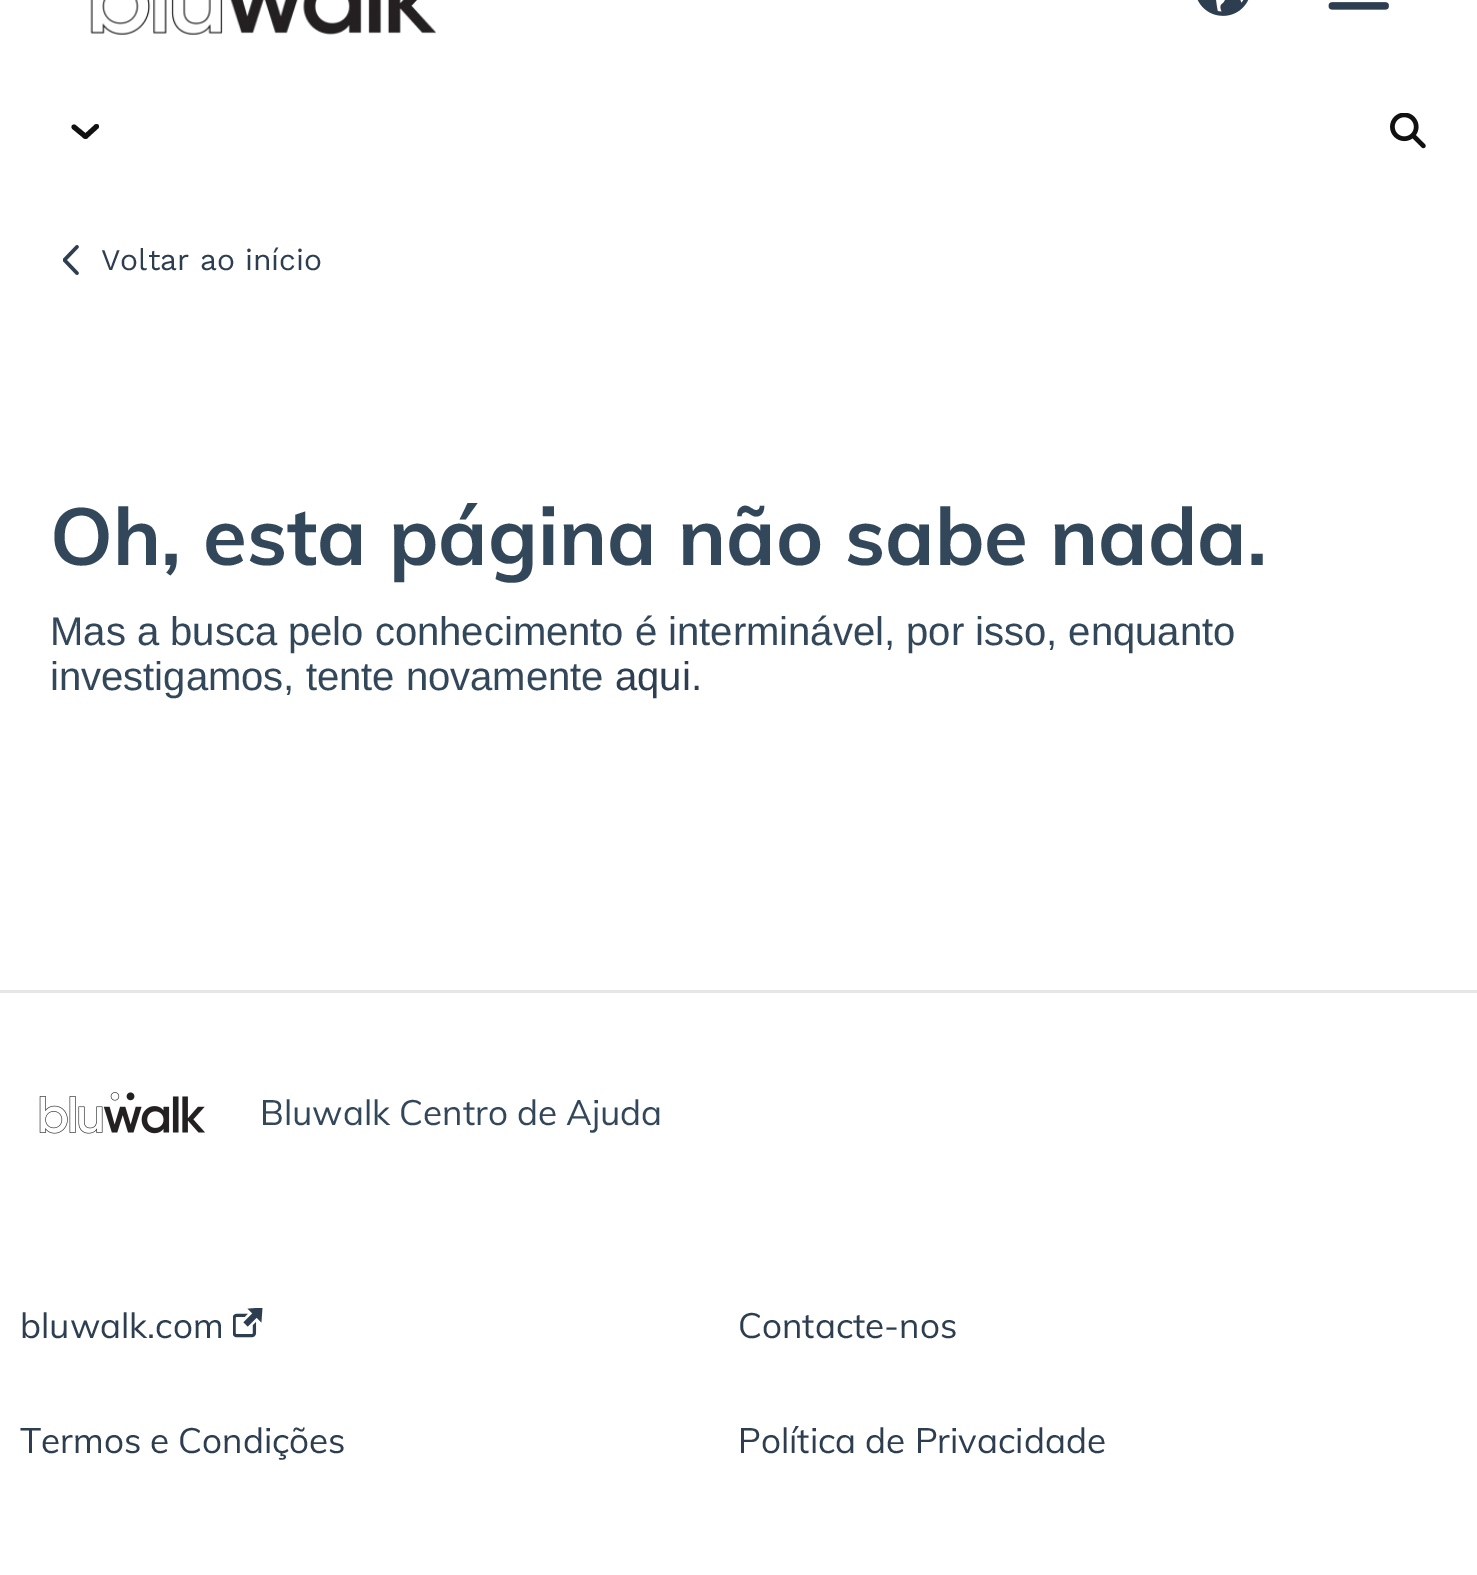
%!PS-Adobe-3.0
%%BoundingBox: 0 0 1477 1575
%%LanguageLevel: 3
%%Pages: 1
%%EndComments
%%BeginProlog
/setink { 3 { 255 div 3 1 roll } repeat setrgbcolor } def
/usefont { [ exch dup neg 0 0 3 -1 roll 0 0 ] selectfont } def
/drawtext { setink usefont moveto show } def
/fillbox { setink rectfill } def
/drawimage { 5 dict begin { /h /w /y /x /name } { exch def } forall
  gsave x y translate w h scale
  w h 8 [w 0 0 h 0 0] name (r) file false 3 colorimage grestore end } def
%%EndProlog
%%BeginSetup
<< /PageSize [1477 1575] >> setpagedevice
%%EndSetup
%%Page: 1 1
0 1575 translate 1 -1 scale
4 setmiterlimit
0 0 1477 1575 255 255 255 fillbox
(assets/img1.rgb) 90 0 346 35 drawimage
(assets/img2.rgb) 1197 0 52 16 drawimage
(assets/img3.rgb) 1328 2 61 8 drawimage
17 17 17 setink
5 setlinewidth
1 setlinecap
1 setlinejoin
96.5 126.5 moveto 85.5 136.5 lineto 74 127 lineto stroke
(assets/img4.rgb) 1390 113 36 36 drawimage
(assets/img5.rgb) 63 245 16 30 drawimage
(Voltar ao início) 101 270 /WorkSans-Regular 30 45 62 80 drawtext
(Oh, esta página não sabe nada.) 50 565 /Muli-Bold 80 51 71 91 drawtext
(Mas a busca pelo conhecimento é interminável, por isso, enquanto) 50 645 /LiberationSans-Regular 40 51 71 91 drawtext
(investigamos, tente novamente) 50 690 /LiberationSans-Regular 40 51 71 91 drawtext
(aqui.) 615 690 /LiberationSans-Regular 40 45 62 80 drawtext
0 990 1477 3 230 230 230 fillbox
(assets/img6.rgb) 39 1092 166 42 drawimage
(Bluwalk Centro de Ajuda) 260 1125 /Muli-Regular 35 51 71 91 drawtext
(bluwalk.com) 20 1338 /Muli-Regular 35 45 62 80 drawtext
(assets/img7.rgb) 233 1308 30 30 drawimage
(Contacte-nos) 738 1338 /Muli-Regular 35 45 62 80 drawtext
(Termos e Condições) 20 1453 /Muli-Regular 35 45 62 80 drawtext
(Política de Privacidade) 738 1453 /Muli-Regular 35 45 62 80 drawtext
showpage
%%EOF
